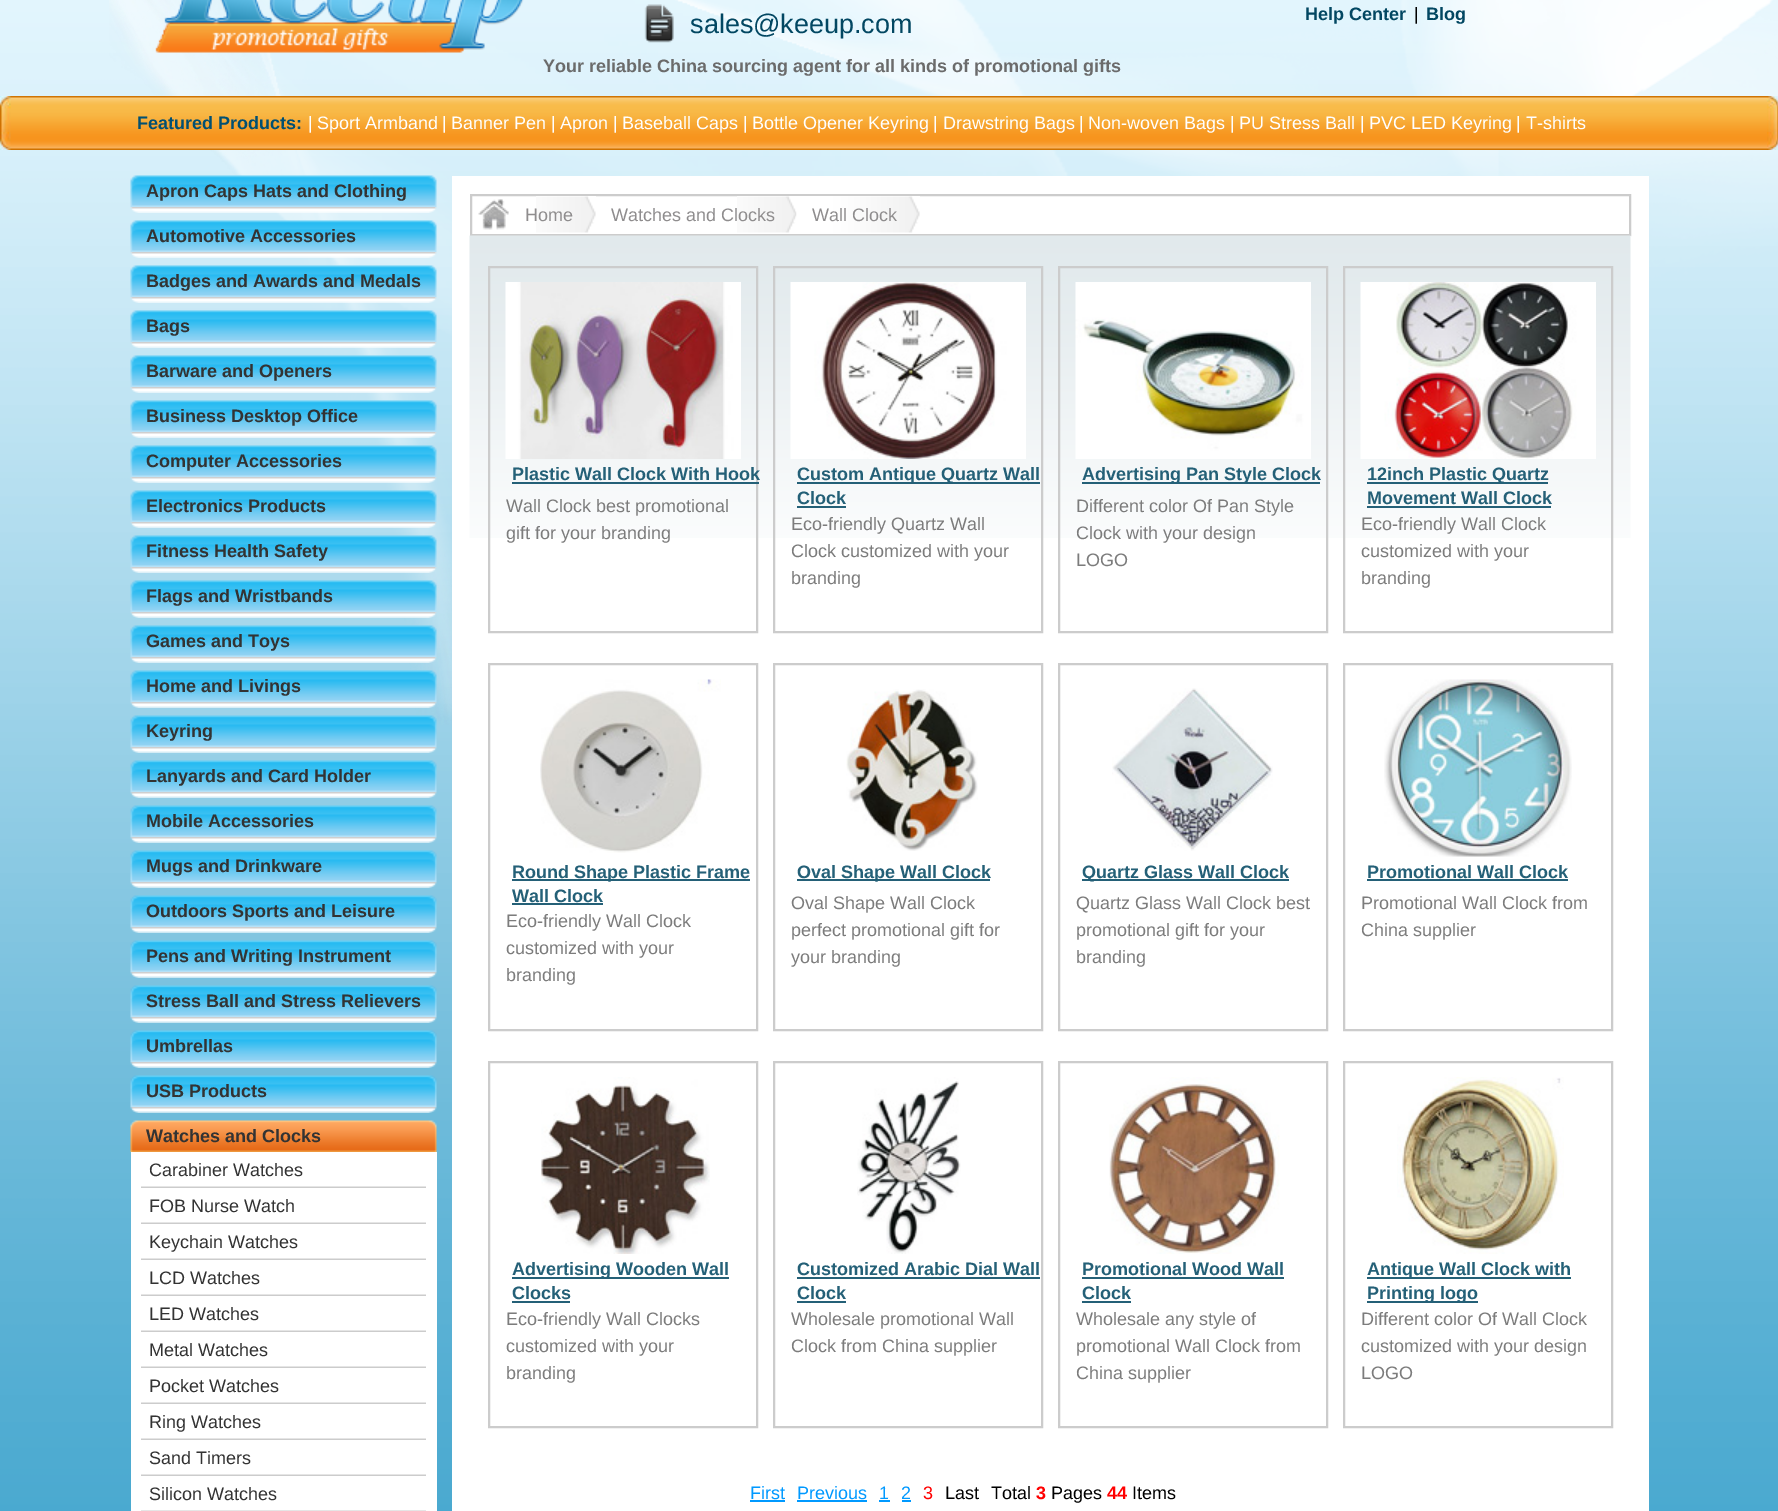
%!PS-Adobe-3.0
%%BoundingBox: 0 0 1778 1511
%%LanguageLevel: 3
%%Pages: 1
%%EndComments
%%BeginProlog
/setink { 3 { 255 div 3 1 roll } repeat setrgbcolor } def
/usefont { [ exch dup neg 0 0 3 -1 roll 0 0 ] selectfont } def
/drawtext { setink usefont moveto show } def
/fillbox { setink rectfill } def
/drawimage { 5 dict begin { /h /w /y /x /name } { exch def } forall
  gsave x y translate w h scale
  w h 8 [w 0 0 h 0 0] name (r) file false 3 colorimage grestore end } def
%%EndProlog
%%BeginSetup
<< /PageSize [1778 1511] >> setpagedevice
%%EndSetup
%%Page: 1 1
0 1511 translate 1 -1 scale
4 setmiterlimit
0 0 1778 1511 255 255 255 fillbox
(assets/img1.rgb) 0 0 1778 1511 drawimage
(assets/img2.rgb) 109 0 1669 725 drawimage
(assets/img3.rgb) 155 0 369 53 drawimage
(assets/img4.rgb) 644 4 30 39 drawimage
(sales@keeup.com) 690 33 /LiberationSans-Regular 27 2 71 98 drawtext
(Your reliable China sourcing agent for all kinds of promotional gifts) 543 72 /LiberationSans-Bold 18 107 107 107 drawtext
(Help Center) 1305 20 /LiberationSans-Bold 18 2 71 98 drawtext
(|) 1414 20 /LiberationSans-Regular 18 0 0 0 drawtext
(Blog) 1426 20 /LiberationSans-Bold 18 2 71 98 drawtext
(assets/img5.rgb) 130 175 307 32 drawimage
(Apron Caps Hats and Clothing) 146 197 /LiberationSans-Bold 18 51 51 51 drawtext
(assets/img6.rgb) 130 207 307 6 drawimage
(assets/img7.rgb) 130 220 307 32 drawimage
(Automotive Accessories) 146 242 /LiberationSans-Bold 18 51 51 51 drawtext
(assets/img8.rgb) 130 252 307 6 drawimage
(assets/img9.rgb) 130 265 307 32 drawimage
(Badges and Awards and Medals) 146 287 /LiberationSans-Bold 18 51 51 51 drawtext
(assets/img10.rgb) 130 297 307 6 drawimage
(assets/img11.rgb) 130 310 307 32 drawimage
(Bags) 146 332 /LiberationSans-Bold 18 51 51 51 drawtext
(assets/img12.rgb) 130 342 307 6 drawimage
(assets/img13.rgb) 130 355 307 32 drawimage
(Barware and Openers) 146 377 /LiberationSans-Bold 18 51 51 51 drawtext
(assets/img14.rgb) 130 387 307 6 drawimage
(assets/img15.rgb) 130 400 307 32 drawimage
(Business Desktop Office) 146 422 /LiberationSans-Bold 18 51 51 51 drawtext
(assets/img16.rgb) 130 432 307 6 drawimage
(assets/img17.rgb) 130 445 307 32 drawimage
(Computer Accessories) 146 467 /LiberationSans-Bold 18 51 51 51 drawtext
(assets/img18.rgb) 130 477 307 6 drawimage
(assets/img19.rgb) 130 490 307 32 drawimage
(Electronics Products) 146 512 /LiberationSans-Bold 18 51 51 51 drawtext
(assets/img20.rgb) 130 522 307 6 drawimage
(assets/img21.rgb) 130 535 307 32 drawimage
(Fitness Health Safety) 146 557 /LiberationSans-Bold 18 51 51 51 drawtext
(assets/img22.rgb) 130 567 307 6 drawimage
(assets/img23.rgb) 130 580 307 32 drawimage
(Flags and Wristbands) 146 602 /LiberationSans-Bold 18 51 51 51 drawtext
(assets/img24.rgb) 130 612 307 6 drawimage
(assets/img25.rgb) 130 625 307 32 drawimage
(Games and Toys) 146 647 /LiberationSans-Bold 18 51 51 51 drawtext
(assets/img26.rgb) 130 657 307 6 drawimage
(assets/img27.rgb) 130 670 307 32 drawimage
(Home and Livings) 146 692 /LiberationSans-Bold 18 51 51 51 drawtext
(assets/img28.rgb) 130 702 307 6 drawimage
(assets/img29.rgb) 130 715 307 32 drawimage
(Keyring) 146 737 /LiberationSans-Bold 18 51 51 51 drawtext
(assets/img30.rgb) 130 747 307 6 drawimage
(assets/img31.rgb) 130 760 307 32 drawimage
(Lanyards and Card Holder) 146 782 /LiberationSans-Bold 18 51 51 51 drawtext
(assets/img32.rgb) 130 792 307 6 drawimage
(assets/img33.rgb) 130 805 307 32 drawimage
(Mobile Accessories) 146 827 /LiberationSans-Bold 18 51 51 51 drawtext
(assets/img34.rgb) 130 837 307 6 drawimage
(assets/img35.rgb) 130 850 307 32 drawimage
(Mugs and Drinkware) 146 872 /LiberationSans-Bold 18 51 51 51 drawtext
(assets/img36.rgb) 130 882 307 6 drawimage
(assets/img37.rgb) 130 895 307 32 drawimage
(Outdoors Sports and Leisure) 146 917 /LiberationSans-Bold 18 51 51 51 drawtext
(assets/img38.rgb) 130 927 307 6 drawimage
(assets/img39.rgb) 130 940 307 32 drawimage
(Pens and Writing Instrument) 146 962 /LiberationSans-Bold 18 51 51 51 drawtext
(assets/img40.rgb) 130 972 307 6 drawimage
(assets/img41.rgb) 130 985 307 32 drawimage
(Stress Ball and Stress Relievers) 146 1007 /LiberationSans-Bold 18 51 51 51 drawtext
(assets/img42.rgb) 130 1017 307 6 drawimage
(assets/img43.rgb) 130 1030 307 32 drawimage
(Umbrellas) 146 1052 /LiberationSans-Bold 18 51 51 51 drawtext
(assets/img44.rgb) 130 1062 307 6 drawimage
(assets/img45.rgb) 130 1075 307 32 drawimage
(USB Products) 146 1097 /LiberationSans-Bold 18 51 51 51 drawtext
(assets/img46.rgb) 130 1107 307 6 drawimage
(assets/img47.rgb) 130 1120 307 32 drawimage
(Watches and Clocks) 146 1142 /LiberationSans-Bold 18 51 51 51 drawtext
131 1152 306 359 255 255 255 fillbox
(Carabiner Watches) 149 1176 /LiberationSans-Regular 18 51 51 51 drawtext
(assets/img48.rgb) 141 1186 285 2 drawimage
(FOB Nurse Watch) 149 1212 /LiberationSans-Regular 18 51 51 51 drawtext
(assets/img48.rgb) 141 1222 285 2 drawimage
(Keychain Watches) 149 1248 /LiberationSans-Regular 18 51 51 51 drawtext
(assets/img48.rgb) 141 1258 285 2 drawimage
(LCD Watches) 149 1284 /LiberationSans-Regular 18 51 51 51 drawtext
(assets/img48.rgb) 141 1294 285 2 drawimage
(LED Watches) 149 1320 /LiberationSans-Regular 18 51 51 51 drawtext
(assets/img48.rgb) 141 1330 285 2 drawimage
(Metal Watches) 149 1356 /LiberationSans-Regular 18 51 51 51 drawtext
(assets/img48.rgb) 141 1366 285 2 drawimage
(Pocket Watches) 149 1392 /LiberationSans-Regular 18 51 51 51 drawtext
(assets/img48.rgb) 141 1402 285 2 drawimage
(Ring Watches) 149 1428 /LiberationSans-Regular 18 51 51 51 drawtext
(assets/img48.rgb) 141 1438 285 2 drawimage
(Sand Timers) 149 1464 /LiberationSans-Regular 18 51 51 51 drawtext
(assets/img48.rgb) 141 1474 285 2 drawimage
(Silicon Watches) 149 1500 /LiberationSans-Regular 18 51 51 51 drawtext
141 1510 285 1 229 229 229 fillbox
452 176 1197 1335 255 255 255 fillbox
204 204 204 setink
2 setlinewidth
471 195 1159 40 rectstroke
(assets/img49.rgb) 478 199 31 31 drawimage
(assets/img50.rgb) 536 196 60 37 drawimage
(Home) 525 221 /LiberationSans-Regular 18 143 141 142 drawtext
(assets/img50.rgb) 737 196 60 37 drawimage
(Watches and Clocks) 611 221 /LiberationSans-Regular 18 143 141 142 drawtext
(assets/img51.rgb) 796 196 124 37 drawimage
(Wall Clock) 812 221 /LiberationSans-Regular 18 143 141 142 drawtext
(assets/img52.rgb) 469 235 1162 303 drawimage
204 204 204 setink
489 267 268 365 rectstroke
(assets/img53.rgb) 505 282 236 177 drawimage
(Plastic Wall Clock With Hook) 512 480 /LiberationSans-Bold 18 36 96 119 drawtext
512 482 247 2 36 96 119 fillbox
(Wall Clock best promotional) 506 512 /LiberationSans-Regular 18 124 124 124 drawtext
(gift for your branding) 506 539 /LiberationSans-Regular 18 124 124 124 drawtext
204 204 204 setink
774 267 268 365 rectstroke
(assets/img54.rgb) 790 282 236 177 drawimage
797 482 243 2 36 96 119 fillbox
(Custom Antique Quartz Wall) 797 480 /LiberationSans-Bold 18 36 96 119 drawtext
(Clock) 797 504 /LiberationSans-Bold 18 36 96 119 drawtext
797 506 49 2 36 96 119 fillbox
(Eco-friendly Quartz Wall) 791 530 /LiberationSans-Regular 18 124 124 124 drawtext
(Clock customized with your) 791 557 /LiberationSans-Regular 18 124 124 124 drawtext
(branding) 791 584 /LiberationSans-Regular 18 124 124 124 drawtext
204 204 204 setink
1059 267 268 365 rectstroke
(assets/img55.rgb) 1075 282 236 177 drawimage
1082 482 238 2 36 96 119 fillbox
(Advertising Pan Style Clock) 1082 480 /LiberationSans-Bold 18 36 96 119 drawtext
(Different color Of Pan Style) 1076 512 /LiberationSans-Regular 18 124 124 124 drawtext
(Clock with your design) 1076 539 /LiberationSans-Regular 18 124 124 124 drawtext
(LOGO) 1076 566 /LiberationSans-Regular 18 124 124 124 drawtext
204 204 204 setink
1344 267 268 365 rectstroke
(assets/img56.rgb) 1360 282 236 177 drawimage
1367 482 181 2 36 96 119 fillbox
(12inch Plastic Quartz) 1367 480 /LiberationSans-Bold 18 36 96 119 drawtext
(Movement Wall Clock) 1367 504 /LiberationSans-Bold 18 36 96 119 drawtext
1367 506 184 2 36 96 119 fillbox
(Eco-friendly Wall Clock) 1361 530 /LiberationSans-Regular 18 124 124 124 drawtext
(customized with your) 1361 557 /LiberationSans-Regular 18 124 124 124 drawtext
(branding) 1361 584 /LiberationSans-Regular 18 124 124 124 drawtext
204 204 204 setink
489 664 268 366 rectstroke
(assets/img57.rgb) 540 679 181 174 drawimage
512 879 238 2 36 96 119 fillbox
(Round Shape Plastic Frame) 512 878 /LiberationSans-Bold 18 36 96 119 drawtext
(Wall Clock) 512 902 /LiberationSans-Bold 18 36 96 119 drawtext
512 903 91 2 36 96 119 fillbox
(Eco-friendly Wall Clock) 506 927 /LiberationSans-Regular 18 124 124 124 drawtext
(customized with your) 506 954 /LiberationSans-Regular 18 124 124 124 drawtext
(branding) 506 981 /LiberationSans-Regular 18 124 124 124 drawtext
204 204 204 setink
774 664 268 366 rectstroke
(assets/img58.rgb) 846 689 132 162 drawimage
797 879 193 2 36 96 119 fillbox
(Oval Shape Wall Clock) 797 878 /LiberationSans-Bold 18 36 96 119 drawtext
(Oval Shape Wall Clock) 791 909 /LiberationSans-Regular 18 124 124 124 drawtext
(perfect promotional gift for) 791 936 /LiberationSans-Regular 18 124 124 124 drawtext
(your branding) 791 963 /LiberationSans-Regular 18 124 124 124 drawtext
204 204 204 setink
1059 664 268 366 rectstroke
(assets/img59.rgb) 1112 688 161 163 drawimage
1082 879 207 2 36 96 119 fillbox
(Quartz Glass Wall Clock) 1082 878 /LiberationSans-Bold 18 36 96 119 drawtext
(Quartz Glass Wall Clock best) 1076 909 /LiberationSans-Regular 18 124 124 124 drawtext
(promotional gift for your) 1076 936 /LiberationSans-Regular 18 124 124 124 drawtext
(branding) 1076 963 /LiberationSans-Regular 18 124 124 124 drawtext
204 204 204 setink
1344 664 268 366 rectstroke
(assets/img60.rgb) 1384 679 188 178 drawimage
(Promotional Wall Clock) 1367 878 /LiberationSans-Bold 18 36 96 119 drawtext
1367 879 201 2 36 96 119 fillbox
(Promotional Wall Clock from) 1361 909 /LiberationSans-Regular 18 124 124 124 drawtext
(China supplier) 1361 936 /LiberationSans-Regular 18 124 124 124 drawtext
204 204 204 setink
489 1062 268 365 rectstroke
(assets/img61.rgb) 541 1077 169 177 drawimage
512 1277 217 2 36 96 119 fillbox
(Advertising Wooden Wall) 512 1275 /LiberationSans-Bold 18 36 96 119 drawtext
(Clocks) 512 1299 /LiberationSans-Bold 18 36 96 119 drawtext
512 1301 58 2 36 96 119 fillbox
(Eco-friendly Wall Clocks) 506 1325 /LiberationSans-Regular 18 124 124 124 drawtext
(customized with your) 506 1352 /LiberationSans-Regular 18 124 124 124 drawtext
(branding) 506 1379 /LiberationSans-Regular 18 124 124 124 drawtext
204 204 204 setink
774 1062 268 365 rectstroke
(assets/img62.rgb) 857 1077 104 177 drawimage
(Customized Arabic Dial Wall) 797 1275 /LiberationSans-Bold 18 36 96 119 drawtext
797 1277 243 2 36 96 119 fillbox
(Clock) 797 1299 /LiberationSans-Bold 18 36 96 119 drawtext
797 1301 49 2 36 96 119 fillbox
(Wholesale promotional Wall) 791 1325 /LiberationSans-Regular 18 124 124 124 drawtext
(Clock from China supplier) 791 1352 /LiberationSans-Regular 18 124 124 124 drawtext
204 204 204 setink
1059 1062 268 365 rectstroke
(assets/img63.rgb) 1109 1077 171 177 drawimage
(Promotional Wood Wall) 1082 1275 /LiberationSans-Bold 18 36 96 119 drawtext
1082 1277 202 2 36 96 119 fillbox
(Clock) 1082 1299 /LiberationSans-Bold 18 36 96 119 drawtext
1082 1301 49 2 36 96 119 fillbox
(Wholesale any style of) 1076 1325 /LiberationSans-Regular 18 124 124 124 drawtext
(promotional Wall Clock from) 1076 1352 /LiberationSans-Regular 18 124 124 124 drawtext
(China supplier) 1076 1379 /LiberationSans-Regular 18 124 124 124 drawtext
204 204 204 setink
1344 1062 268 365 rectstroke
(assets/img64.rgb) 1397 1077 167 177 drawimage
1367 1277 204 2 36 96 119 fillbox
(Antique Wall Clock with) 1367 1275 /LiberationSans-Bold 18 36 96 119 drawtext
1367 1301 111 2 36 96 119 fillbox
(Printing logo) 1367 1299 /LiberationSans-Bold 18 36 96 119 drawtext
(Different color Of Wall Clock) 1361 1325 /LiberationSans-Regular 18 124 124 124 drawtext
(customized with your design) 1361 1352 /LiberationSans-Regular 18 124 124 124 drawtext
(LOGO) 1361 1379 /LiberationSans-Regular 18 124 124 124 drawtext
(First) 750 1499 /LiberationSans-Regular 18 0 153 255 drawtext
750 1500 35 2 0 153 255 fillbox
(Previous) 797 1499 /LiberationSans-Regular 18 0 153 255 drawtext
797 1500 70 2 0 153 255 fillbox
(1) 879 1499 /LiberationSans-Regular 18 0 153 255 drawtext
879 1500 11 2 0 153 255 fillbox
(2) 901 1499 /LiberationSans-Regular 18 0 153 255 drawtext
902 1500 9 2 0 153 255 fillbox
(3) 923 1499 /LiberationSans-Regular 18 255 0 0 drawtext
(Last) 945 1499 /LiberationSans-Regular 18 0 0 0 drawtext
(Total) 991 1499 /LiberationSans-Regular 18 0 0 0 drawtext
(3) 1036 1499 /LiberationSans-Bold 18 255 0 0 drawtext
(Pages) 1051 1499 /LiberationSans-Regular 18 0 0 0 drawtext
(44) 1107 1499 /LiberationSans-Bold 18 255 0 0 drawtext
(Items) 1132 1499 /LiberationSans-Regular 18 0 0 0 drawtext
(assets/img65.rgb) 10 96 1757 54 drawimage
(assets/img66.rgb) 0 96 11 54 drawimage
(Featured Products:) 137 129 /LiberationSans-Bold 18 1 80 114 drawtext
(|) 308 129 /LiberationSans-Regular 18 255 255 255 drawtext
(Sport Armband) 317 129 /LiberationSans-Regular 18 255 255 255 drawtext
(|) 442 129 /LiberationSans-Regular 18 255 255 255 drawtext
(Banner Pen) 451 129 /LiberationSans-Regular 18 255 255 255 drawtext
(|) 551 129 /LiberationSans-Regular 18 255 255 255 drawtext
(Apron) 560 129 /LiberationSans-Regular 18 255 255 255 drawtext
(|) 613 129 /LiberationSans-Regular 18 255 255 255 drawtext
(Baseball Caps) 622 129 /LiberationSans-Regular 18 255 255 255 drawtext
(|) 743 129 /LiberationSans-Regular 18 255 255 255 drawtext
(Bottle Opener Keyring) 752 129 /LiberationSans-Regular 18 255 255 255 drawtext
(|) 933 129 /LiberationSans-Regular 18 255 255 255 drawtext
(Drawstring Bags) 943 129 /LiberationSans-Regular 18 255 255 255 drawtext
(|) 1079 129 /LiberationSans-Regular 18 255 255 255 drawtext
(Non-woven Bags) 1088 129 /LiberationSans-Regular 18 255 255 255 drawtext
(|) 1230 129 /LiberationSans-Regular 18 255 255 255 drawtext
(PU Stress Ball) 1239 129 /LiberationSans-Regular 18 255 255 255 drawtext
(|) 1360 129 /LiberationSans-Regular 18 255 255 255 drawtext
(PVC LED Keyring) 1369 129 /LiberationSans-Regular 18 255 255 255 drawtext
(|) 1516 129 /LiberationSans-Regular 18 255 255 255 drawtext
(T-shirts) 1526 129 /LiberationSans-Regular 18 255 255 255 drawtext
(assets/img67.rgb) 1767 96 11 54 drawimage
showpage
%%EOF
